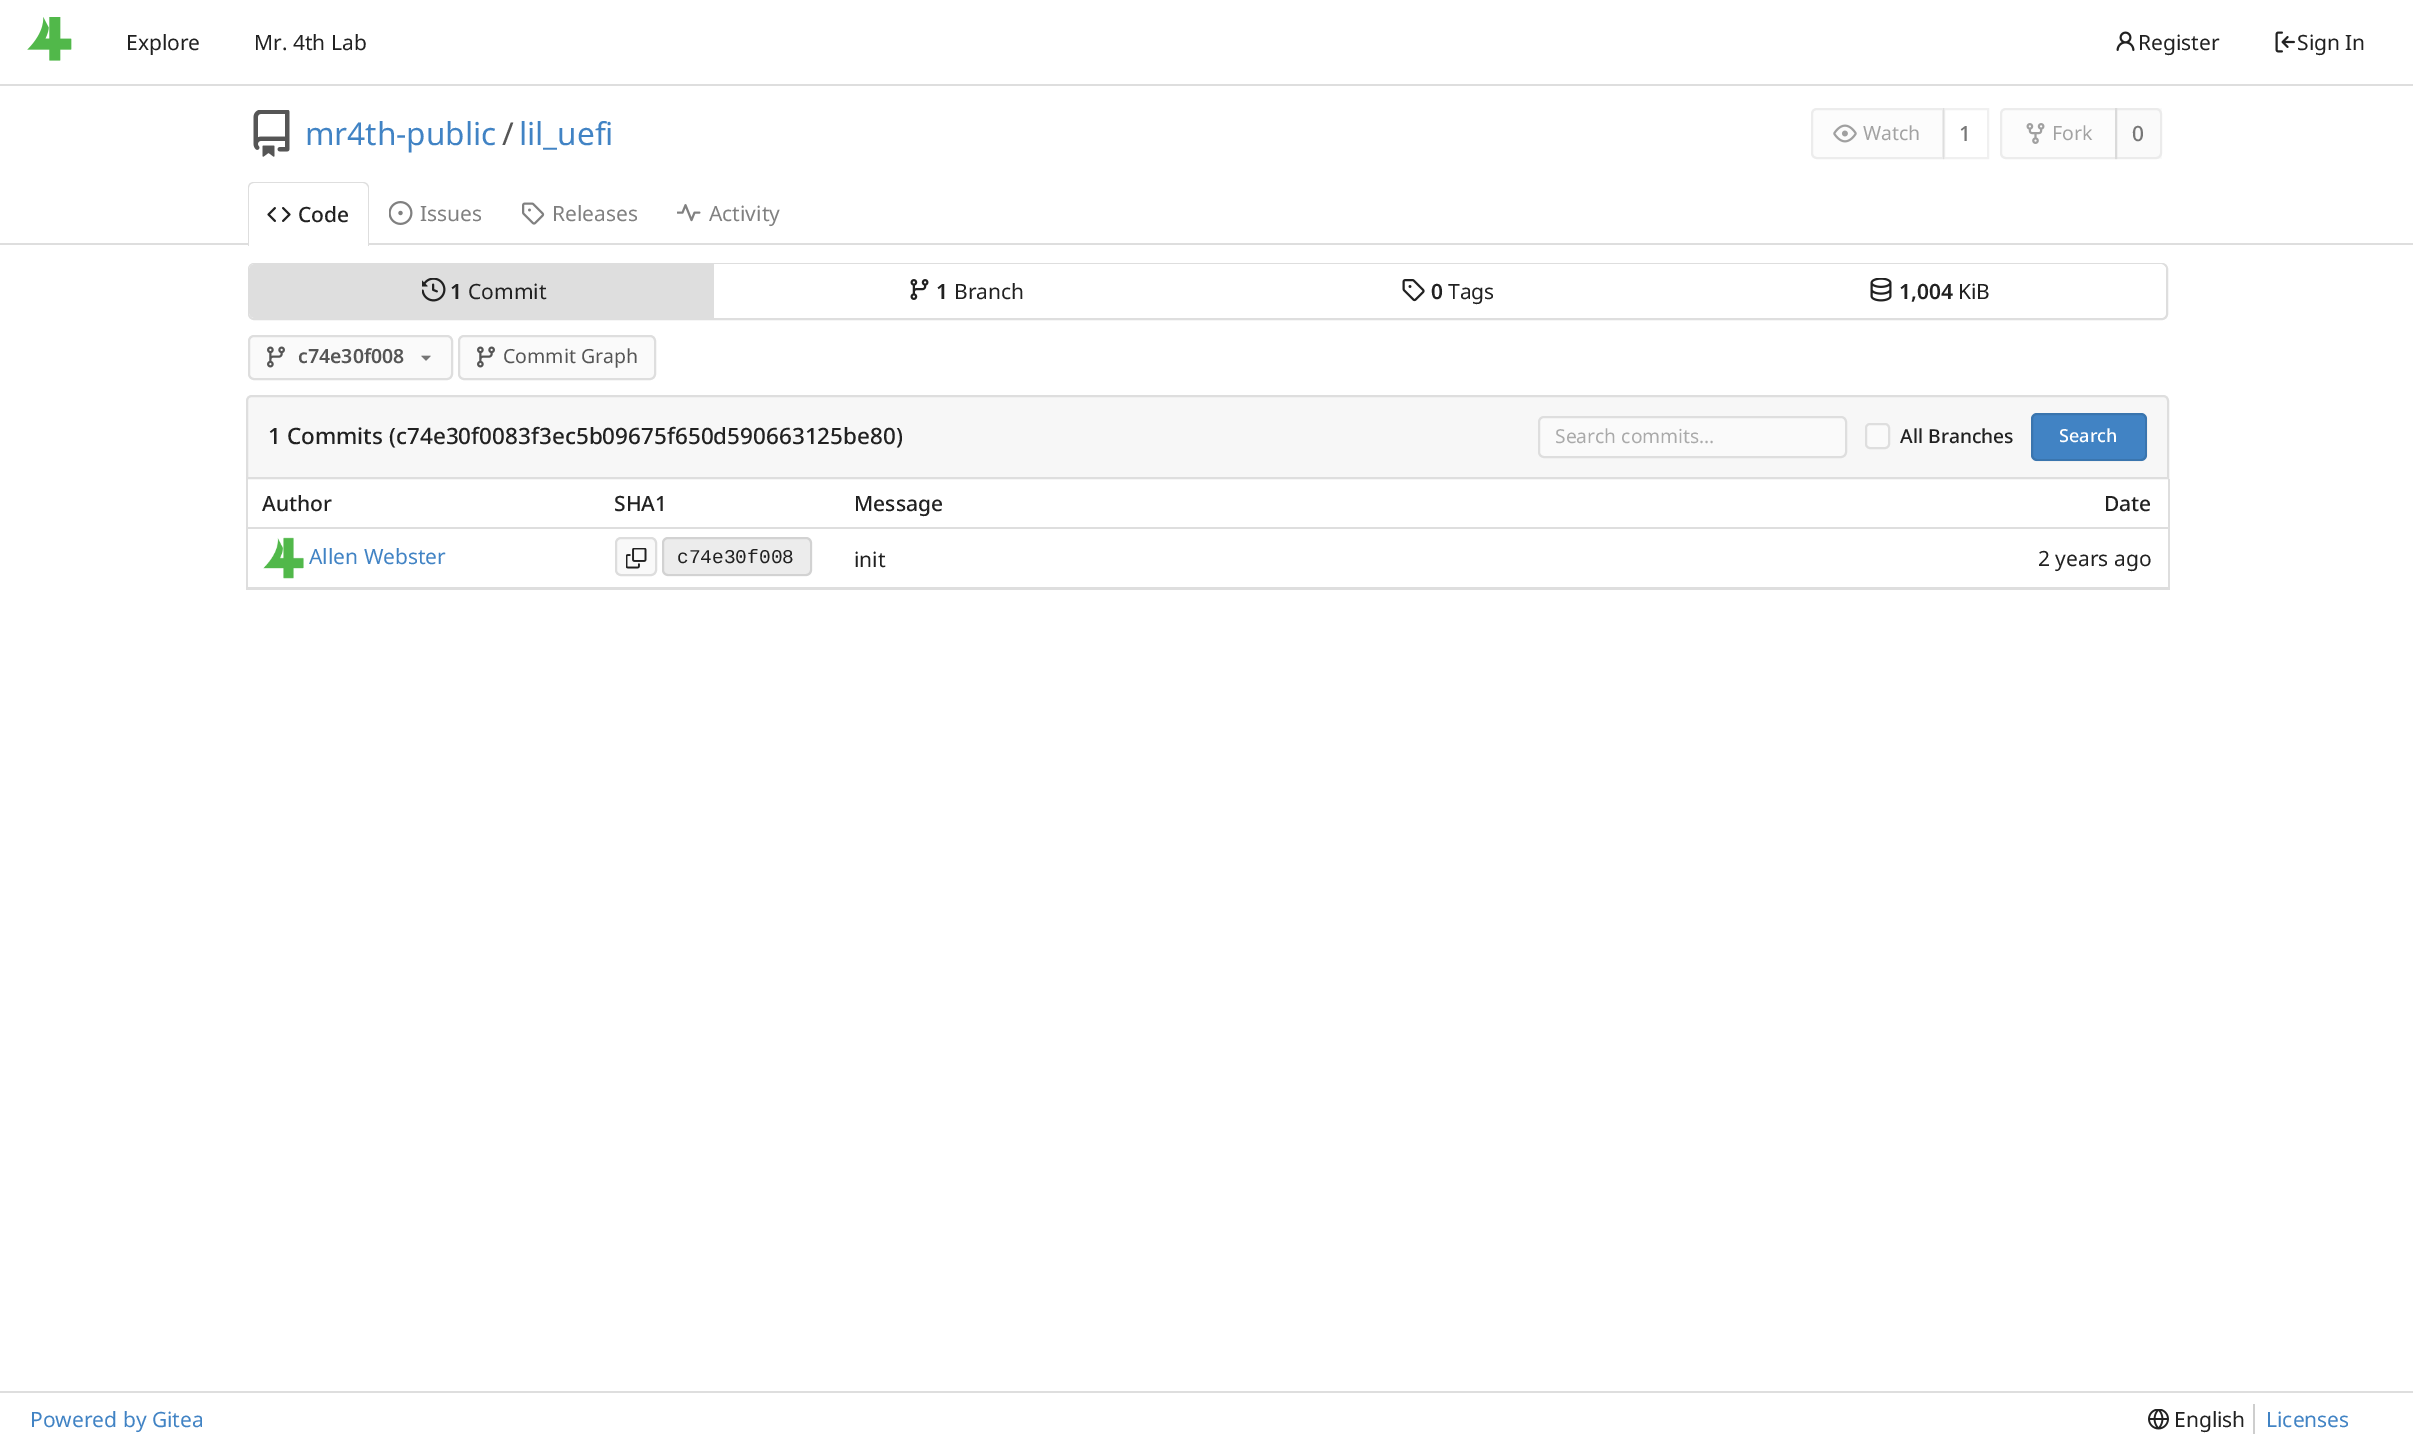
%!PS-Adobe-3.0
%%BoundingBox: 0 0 2413 1445
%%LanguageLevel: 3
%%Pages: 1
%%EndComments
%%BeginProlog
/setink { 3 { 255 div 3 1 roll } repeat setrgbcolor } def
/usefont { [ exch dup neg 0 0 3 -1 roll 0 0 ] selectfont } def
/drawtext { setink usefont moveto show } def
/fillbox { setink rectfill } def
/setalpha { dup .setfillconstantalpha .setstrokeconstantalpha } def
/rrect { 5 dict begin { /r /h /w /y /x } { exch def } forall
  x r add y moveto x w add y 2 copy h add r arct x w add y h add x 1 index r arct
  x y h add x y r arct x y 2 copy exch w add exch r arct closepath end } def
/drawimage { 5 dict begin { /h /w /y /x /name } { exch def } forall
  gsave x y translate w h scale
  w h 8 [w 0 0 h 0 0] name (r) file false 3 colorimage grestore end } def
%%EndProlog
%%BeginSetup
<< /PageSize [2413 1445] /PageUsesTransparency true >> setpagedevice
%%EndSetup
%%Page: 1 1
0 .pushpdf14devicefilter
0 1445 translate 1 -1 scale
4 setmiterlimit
0 0 2413 1445 255 255 255 fillbox
0 84 2413 2 222 222 222 fillbox
(assets/img1.rgb) 27 17 45 44 drawimage
(Explore) 126 50 /NotoSans-Regular 21 33 33 33 drawtext
(Mr. 4th Lab) 254 50 /NotoSans-Regular 21 33 33 33 drawtext
(assets/img2.rgb) 2116 31 19 20 drawimage
(Register) 2138 50 /NotoSans-Regular 21 33 33 33 drawtext
(assets/img3.rgb) 2275 31 20 22 drawimage
(Sign In) 2297 50 /NotoSans-Regular 21 33 33 33 drawtext
(assets/img4.rgb) 253 110 37 47 drawimage
(mr4th-public) 305 145 /NotoSans-Regular 31.5 65 131 196 drawtext
(/) 502 145 /NotoSans-Regular 31.5 85 85 85 drawtext
(lil_uefi) 519 145 /NotoSans-Regular 31.5 65 131 196 drawtext
252 252 252 setink
1817 109 moveto 1943 109 lineto 1943 158 lineto 1817 158 lineto 1814 158 1812 156 1812 153 curveto 1812 114 lineto 1812 111 1814 109 1817 109 curveto closepath gsave fill grestore
236 236 236 setink
2 setlinewidth
stroke
(assets/img5.rgb) 1833 124 24 19 drawimage
(Watch) 1863 140 /NotoSans-Regular 19.5 162 162 162 drawtext
0.06 setalpha
0 0 0 setink
1944 109 44 49 rectstroke
1 setalpha
(1) 1959 141 /NotoSans-Medium 21 119 119 119 drawtext
252 252 252 setink
2006 109 moveto 2116 109 lineto 2116 158 lineto 2006 158 lineto 2003 158 2001 156 2001 153 curveto 2001 114 lineto 2001 111 2003 109 2006 109 curveto closepath gsave fill grestore
236 236 236 setink
stroke
(assets/img6.rgb) 2026 123 19 21 drawimage
(Fork) 2052 140 /NotoSans-Regular 19.5 162 162 162 drawtext
0.04 setalpha
2115 108 47 51 115 115 115 fillbox
0.11 setalpha
2116 109 moveto 2156 109 lineto 2159 109 2161 111 2161 114 curveto 2161 153 lineto 2161 156 2159 158 2156 158 curveto 2116 158 lineto closepath stroke
1 setalpha
(0) 2132 141 /NotoSans-Medium 21 119 119 119 drawtext
0 243 2413 2 222 222 222 fillbox
255 255 255 setink
254 182 moveto 363 182 lineto 366.5 182 369 184.5 369 188 curveto 369 245 lineto 248 245 lineto 248 188 lineto 248 184.5 250.5 182 254 182 curveto closepath fill
222 222 222 setink
254 182 moveto 363 182 lineto 366 182 369 184 369 188 curveto 369 246 lineto 248 246 lineto 248 188 lineto 248 184 250 182 254 182 curveto closepath 254 183 moveto 363 183 lineto 365 183 368 185 368 188 curveto 368 246 lineto 249 246 lineto 249 188 lineto 249 185 251 183 254 183 curveto closepath eofill
(assets/img7.rgb) 267 207 24 15 drawimage
(Code) 298 222 /NotoSans-Medium 21 33 33 33 drawtext
(assets/img8.rgb) 389 201 24 24 drawimage
(Issues) 420 221 /NotoSans-Regular 21 128 128 128 drawtext
(assets/img9.rgb) 522 202 23 23 drawimage
(Releases) 552 221 /NotoSans-Regular 21 128 128 128 drawtext
(assets/img10.rgb) 677 204 24 18 drawimage
(Activity) 709 221 /NotoSans-Regular 21 128 128 128 drawtext
222 222 222 setink
249 264 1918 55 5 rrect stroke
255 255 255 setink
249 264 1917 54 6 rrect fill
222 222 222 setink
255 264 moveto 714 264 lineto 714 318 lineto 255 318 lineto 251.5 318 249 315.5 249 312 curveto 249 270 lineto 249 266.5 251.5 264 255 264 curveto closepath fill
(assets/img11.rgb) 422 278 24 24 drawimage
(1) 450 299 /NotoSans-SemiBold 21 33 33 33 drawtext
(Commit) 468 299 /NotoSans-Regular 21 33 33 33 drawtext
(assets/img12.rgb) 910 279 19 21 drawimage
(1) 936 299 /NotoSans-SemiBold 21 33 33 33 drawtext
(Branch) 954 299 /NotoSans-Regular 21 33 33 33 drawtext
(assets/img13.rgb) 1402 279 23 23 drawimage
(0) 1431 299 /NotoSans-SemiBold 21 33 33 33 drawtext
(Tags) 1448 299 /NotoSans-Regular 21 33 33 33 drawtext
(assets/img14.rgb) 1870 278 22 24 drawimage
(1,004) 1899 299 /NotoSans-SemiBold 21 33 33 33 drawtext
(KiB) 1958 299 /NotoSans-Regular 21 33 33 33 drawtext
250 250 250 setink
249 336 203 43 5 rrect gsave fill grestore
222 222 222 setink
stroke
(assets/img15.rgb) 267 346 18 22 drawimage
(c74e30f008) 298 363 /NotoSans-SemiBold 19.5 85 85 85 drawtext
(assets/img16.rgb) 421 355 10 6 drawimage
250 250 250 setink
459 336 196 43 5 rrect gsave fill grestore
222 222 222 setink
stroke
(assets/img15.rgb) 477 346 18 22 drawimage
(Commit Graph) 503 363 /NotoSans-Regular 19.5 85 85 85 drawtext
247 247 247 setink
252 396 moveto 2163 396 lineto 2166 396 2168 398 2168 401 curveto 2168 478 lineto 247 478 lineto 247 401 lineto 247 398 249 396 252 396 curveto closepath gsave fill grestore
222 222 222 setink
stroke
(1 Commits \(c74e30f0083f3ec5b09675f650d590663125be80\)) 268 444 /NotoSans-Medium 22.5 33 33 33 drawtext
250 250 250 setink
1539 417 307 40 5 rrect gsave fill grestore
222 222 222 setink
stroke
(Search commits…) 1555 443 /NotoSans-Regular 19.25 170 170 170 drawtext
250 250 250 setink
1866 424 23 24 4 rrect gsave fill grestore
222 222 222 setink
stroke
(All Branches) 1900 443 /NotoSans-Medium 19.25 33 33 33 drawtext
65 131 196 setink
2031 413 116 48 6 rrect fill
0.11 setalpha
0 0 0 setink
2032 414 114 46 5 rrect stroke
1 setalpha
(Search) 2059 442 /NotoSans-Medium 18 255 255 255 drawtext
2168 479 2 111 222 222 222 fillbox
246 588 1923 2 222 222 222 fillbox
246 479 2 111 222 222 222 fillbox
248 527 1920 2 222 222 222 fillbox
(Author) 262 511 /NotoSans-Medium 21 33 33 33 drawtext
(SHA1) 614 511 /NotoSans-Medium 21 33 33 33 drawtext
(Message) 854 511 /NotoSans-Medium 21 33 33 33 drawtext
(Date) 2104 511 /NotoSans-Medium 21 33 33 33 drawtext
248 587 1920 1 222 222 222 fillbox
(assets/img17.rgb) 263 537 41 42 drawimage
(Allen Webster) 309 564 /NotoSans-Regular 21 65 131 196 drawtext
249 249 249 setink
616 538 40 37 5 rrect gsave fill grestore
221 221 221 setink
stroke
(assets/img18.rgb) 626 548 21 21 drawimage
236 236 236 setink
662 537 150 39 6 rrect fill
0.11 setalpha
0 0 0 setink
663 538 148 37 5 rrect stroke
1 setalpha
(c74e30f008) 677 563 /LiberationMono-Regular 19.5 33 33 33 drawtext
(init) 854 567 /NotoSans-Regular 21 33 33 33 drawtext
(2 years ago) 2038 566 /NotoSans-Regular 21 33 33 33 drawtext
0 1391 2413 2 222 222 222 fillbox
(Powered by Gitea) 30 1427 /NotoSans-Regular 21 65 131 196 drawtext
(assets/img19.rgb) 2148 1409 21 21 drawimage
(English) 2174 1427 /NotoSans-Regular 21 33 33 33 drawtext
2253 1404 2 30 206 206 206 fillbox
(Licenses) 2266 1427 /NotoSans-Regular 21 65 131 196 drawtext
.poppdf14devicefilter showpage
%%EOF
